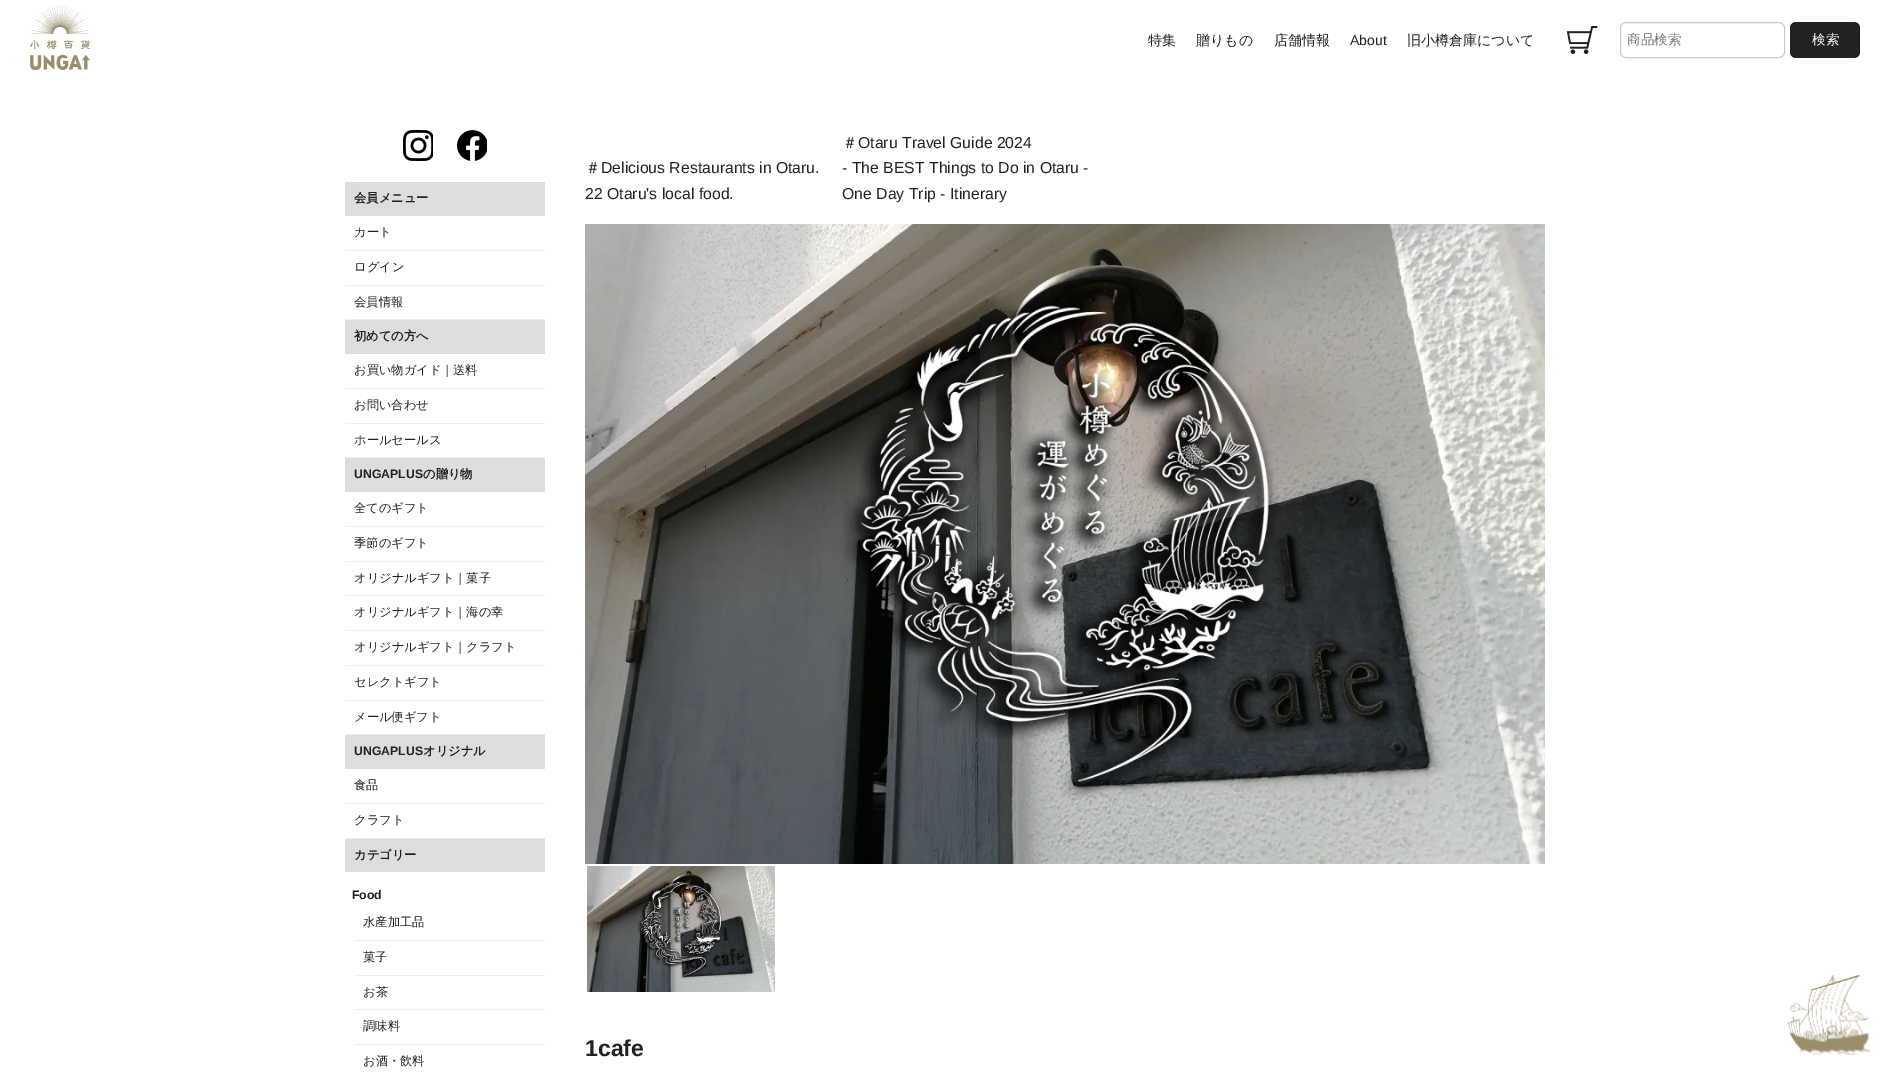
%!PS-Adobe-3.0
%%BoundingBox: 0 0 1890 1075
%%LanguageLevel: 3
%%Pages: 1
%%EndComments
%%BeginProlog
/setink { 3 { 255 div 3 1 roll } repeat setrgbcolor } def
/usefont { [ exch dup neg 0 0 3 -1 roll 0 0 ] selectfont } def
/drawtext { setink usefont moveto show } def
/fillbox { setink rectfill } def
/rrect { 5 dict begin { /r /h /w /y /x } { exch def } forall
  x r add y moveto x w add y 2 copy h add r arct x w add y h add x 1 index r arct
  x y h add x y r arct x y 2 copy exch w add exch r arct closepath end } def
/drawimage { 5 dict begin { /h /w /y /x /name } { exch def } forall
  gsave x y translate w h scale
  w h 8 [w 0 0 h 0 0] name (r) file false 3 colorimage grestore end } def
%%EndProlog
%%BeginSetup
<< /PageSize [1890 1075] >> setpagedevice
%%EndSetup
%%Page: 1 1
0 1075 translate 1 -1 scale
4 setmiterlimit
0 0 1890 1075 255 255 255 fillbox
(assets/img1.rgb) 30 5 60 65 drawimage
(特集) 1148 45 /WenQuanYiZenHei-Medium 14 34 34 34 drawtext
(贈りもの) 1196 45 /WenQuanYiZenHei-Medium 14 34 34 34 drawtext
(店舗情報) 1274 45 /WenQuanYiZenHei-Medium 14 34 34 34 drawtext
(About) 1350 45 /LiberationSans-Regular 14 34 34 34 drawtext
(旧小樽倉庫について) 1407 45 /WenQuanYiZenHei-Medium 14 34 34 34 drawtext
(assets/img2.rgb) 1566 26 32 28 drawimage
204 204 204 setink
1620.5 22.5 164 35 5.5 rrect stroke
(商品検索) 1627 44 /WenQuanYiZenHei-Medium 13.5 117 117 117 drawtext
34 34 34 setink
1790 22 70 36 6 rrect fill
(検索) 1812 44 /WenQuanYiZenHei-Medium 13.5 255 255 255 drawtext
(assets/img3.rgb) 403 130 30 31 drawimage
(assets/img4.rgb) 457 130 30 31 drawimage
345 182 200 34 221 221 221 fillbox
(会員メニュー) 354 202 /WenQuanYiZenHei-Bold 12.25 34 34 34 drawtext
345 250 200 1 238 238 238 fillbox
(カート) 354 236 /WenQuanYiZenHei-Medium 12.25 34 34 34 drawtext
345 285 200 1 238 238 238 fillbox
(ログイン) 354 271 /WenQuanYiZenHei-Medium 12.25 34 34 34 drawtext
345 319 200 1 238 238 238 fillbox
(会員情報) 354 306 /WenQuanYiZenHei-Medium 12.25 34 34 34 drawtext
345 320 200 34 221 221 221 fillbox
(初めての方へ) 354 340 /WenQuanYiZenHei-Bold 12.25 34 34 34 drawtext
345 388 200 1 238 238 238 fillbox
(お買い物ガイド｜送料) 354 374 /WenQuanYiZenHei-Medium 12.25 34 34 34 drawtext
345 423 200 1 238 238 238 fillbox
(お問い合わせ) 354 409 /WenQuanYiZenHei-Medium 12.25 34 34 34 drawtext
345 457 200 1 238 238 238 fillbox
(ホールセールス) 354 444 /WenQuanYiZenHei-Medium 12.25 34 34 34 drawtext
345 458 200 34 221 221 221 fillbox
(UNGAPLUS) 354 478 /LiberationSans-Bold 12.25 34 34 34 drawtext
(の贈り物) 423 478 /WenQuanYiZenHei-Bold 12.25 34 34 34 drawtext
345 526 200 1 238 238 238 fillbox
(全てのギフト) 354 512 /WenQuanYiZenHei-Medium 12.25 34 34 34 drawtext
345 561 200 1 238 238 238 fillbox
(季節のギフト) 354 547 /WenQuanYiZenHei-Medium 12.25 34 34 34 drawtext
345 595 200 1 238 238 238 fillbox
(オリジナルギフト｜菓子) 354 582 /WenQuanYiZenHei-Medium 12.25 34 34 34 drawtext
345 630 200 1 238 238 238 fillbox
(オリジナルギフト｜海の幸) 354 616 /WenQuanYiZenHei-Medium 12.25 34 34 34 drawtext
345 665 200 1 238 238 238 fillbox
(オリジナルギフト｜クラフト) 354 651 /WenQuanYiZenHei-Medium 12.25 34 34 34 drawtext
345 700 200 1 238 238 238 fillbox
(セレクトギフト) 354 686 /WenQuanYiZenHei-Medium 12.25 34 34 34 drawtext
345 734 200 1 238 238 238 fillbox
(メール便ギフト) 354 721 /WenQuanYiZenHei-Medium 12.25 34 34 34 drawtext
345 735 200 34 221 221 221 fillbox
(UNGAPLUS) 354 755 /LiberationSans-Bold 12.25 34 34 34 drawtext
(オリジナル) 423 755 /WenQuanYiZenHei-Bold 12.25 34 34 34 drawtext
345 803 200 1 238 238 238 fillbox
(食品) 354 789 /WenQuanYiZenHei-Medium 12.25 34 34 34 drawtext
345 838 200 1 238 238 238 fillbox
(クラフト) 354 824 /WenQuanYiZenHei-Medium 12.25 34 34 34 drawtext
345 839 200 33 221 221 221 fillbox
(カテゴリー) 354 859 /WenQuanYiZenHei-Bold 12.25 34 34 34 drawtext
(Food) 352 899 /LiberationSans-Bold 12.25 34 34 34 drawtext
354 940 191 1 238 238 238 fillbox
(水産加工品) 363 926 /WenQuanYiZenHei-Medium 12.25 34 34 34 drawtext
354 975 191 1 238 238 238 fillbox
(菓子) 363 961 /WenQuanYiZenHei-Medium 12.25 34 34 34 drawtext
354 1009 191 1 238 238 238 fillbox
(お茶) 363 996 /WenQuanYiZenHei-Medium 12.25 34 34 34 drawtext
354 1044 191 1 238 238 238 fillbox
(調味料) 363 1030 /WenQuanYiZenHei-Medium 12.25 34 34 34 drawtext
(お酒・飲料) 363 1065 /WenQuanYiZenHei-Medium 12.25 34 34 34 drawtext
(＃) 585 173 /WenQuanYiZenHei-Medium 15.8 34 34 34 drawtext
(Delicious Restaurants in Otaru.) 601 173 /LiberationSans-Regular 15.8 34 34 34 drawtext
(22 Otaru's local food.) 585 199 /LiberationSans-Regular 15.8 34 34 34 drawtext
(＃) 842 148 /WenQuanYiZenHei-Medium 15.8 34 34 34 drawtext
(Otaru Travel Guide 2024) 858 148 /LiberationSans-Regular 15.8 34 34 34 drawtext
(- The BEST Things to Do in Otaru -) 842 173 /LiberationSans-Regular 15.8 34 34 34 drawtext
(One Day Trip - Itinerary) 842 199 /LiberationSans-Regular 15.8 34 34 34 drawtext
(assets/img5.rgb) 585 224 960 640 drawimage
(assets/img6.rgb) 587 866 188 126 drawimage
(1cafe) 585 1056 /LiberationSans-Bold 23 34 34 34 drawtext
(assets/img7.rgb) 1788 975 82 80 drawimage
showpage
%%EOF
